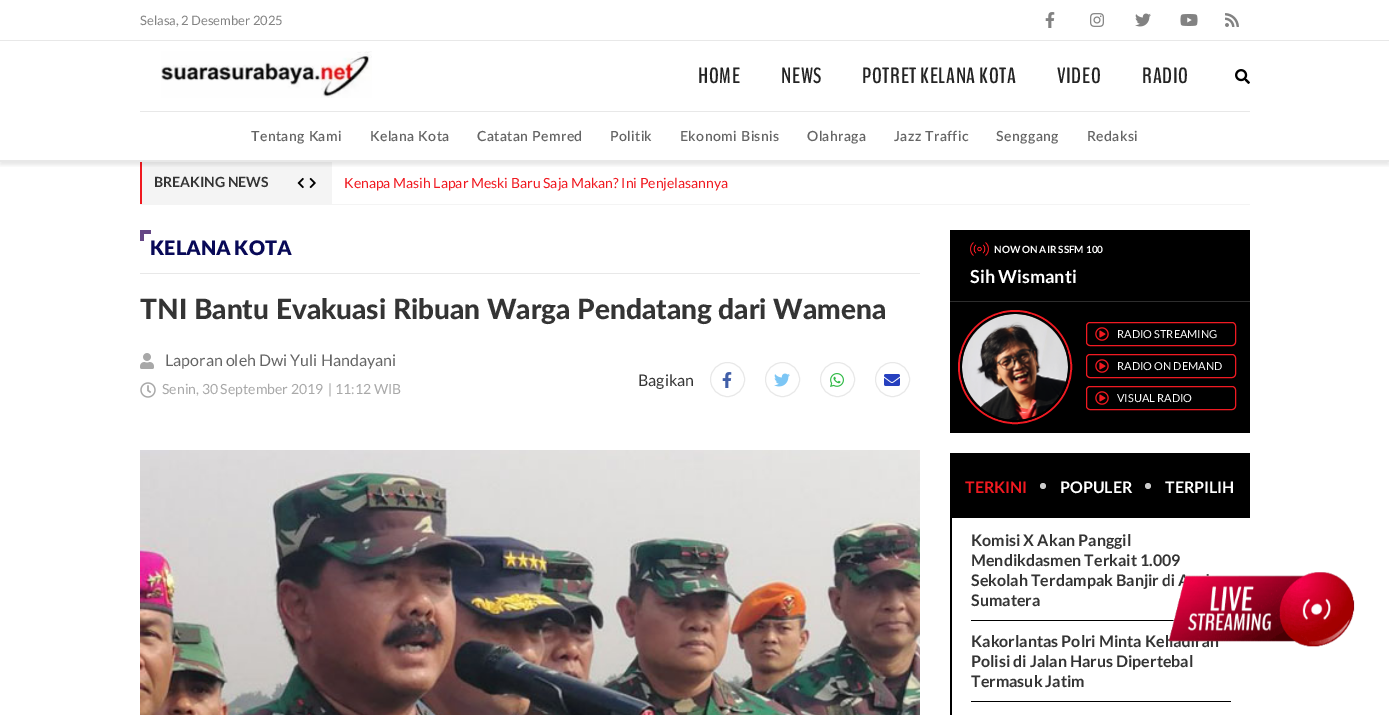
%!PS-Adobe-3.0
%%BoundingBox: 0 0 1389 715
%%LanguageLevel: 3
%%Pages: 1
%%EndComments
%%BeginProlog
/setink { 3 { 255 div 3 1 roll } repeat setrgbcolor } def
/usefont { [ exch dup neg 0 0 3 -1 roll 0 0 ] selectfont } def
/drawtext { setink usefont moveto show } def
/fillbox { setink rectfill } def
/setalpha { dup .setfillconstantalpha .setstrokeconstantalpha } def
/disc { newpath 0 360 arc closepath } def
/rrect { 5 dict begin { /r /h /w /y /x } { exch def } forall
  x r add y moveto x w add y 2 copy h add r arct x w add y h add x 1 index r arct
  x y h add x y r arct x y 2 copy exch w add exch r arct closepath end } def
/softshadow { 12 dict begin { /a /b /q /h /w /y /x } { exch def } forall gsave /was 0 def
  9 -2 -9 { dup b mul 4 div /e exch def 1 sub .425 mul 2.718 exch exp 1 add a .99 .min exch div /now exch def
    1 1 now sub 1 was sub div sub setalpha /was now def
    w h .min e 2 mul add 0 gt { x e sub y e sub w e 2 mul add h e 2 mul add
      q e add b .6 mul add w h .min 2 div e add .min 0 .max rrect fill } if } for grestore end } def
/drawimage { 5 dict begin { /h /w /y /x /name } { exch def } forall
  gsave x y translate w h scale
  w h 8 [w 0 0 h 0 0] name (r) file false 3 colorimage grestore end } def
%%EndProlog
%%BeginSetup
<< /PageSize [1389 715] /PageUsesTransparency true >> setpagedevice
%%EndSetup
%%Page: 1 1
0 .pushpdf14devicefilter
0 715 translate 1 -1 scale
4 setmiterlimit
0 0 1389 715 255 255 255 fillbox
0 40 1389 1 232 232 232 fillbox
(Selasa, 2 Desember 2025) 140 25 /Lato-Regular 13 130 130 130 drawtext
(assets/img1.rgb) 1045 12 10 16 drawimage
(assets/img2.rgb) 1090 13 14 14 drawimage
(assets/img3.rgb) 1135 13 16 14 drawimage
(assets/img4.rgb) 1180 14 18 12 drawimage
(assets/img5.rgb) 1225 13 14 14 drawimage
142 162 190 42 244 244 244 fillbox
140 160 2 44 240 25 32 fillbox
gsave
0 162 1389 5 rectclip
0 0 0 setink
0 44 1389 121 0 2 0.09 softshadow
grestore
0 160 1389 2 232 232 232 fillbox
140 111 1110 1 232 232 232 fillbox
(assets/img6.rgb) 161 51 211 47 drawimage
/BenchNine-Bold 22 usefont
36 36 36 setink
698 83 moveto 0.6 0 (HOME) ashow
781 83 moveto 0.6 0 (NEWS) ashow
862 83 moveto 0.6 0 (POTRET KELANA KOTA) ashow
1057 83 moveto 0.6 0 (VIDEO) ashow
1142 83 moveto 0.6 0 (RADIO) ashow
(assets/img7.rgb) 1235 69 15 15 drawimage
/Lato-SemiBold 14 usefont
101 101 101 setink
251 141 moveto 0.4 0 (Tentang Kami) ashow
370 141 moveto 0.4 0 (Kelana Kota) ashow
477 141 moveto 0.4 0 (Catatan Pemred) ashow
610 141 moveto 0.4 0 (Politik) ashow
680 141 moveto 0.4 0 (Ekonomi Bisnis) ashow
807 141 moveto 0.4 0 (Olahraga) ashow
894 141 moveto 0.4 0 (Jazz Traffic) ashow
996 141 moveto 0.4 0 (Senggang) ashow
1087 141 moveto 0.4 0 (Redaksi) ashow
140 204 1110 1 244 244 244 fillbox
(BREAKING NEWS) 154 187 /Lato-Bold 14 52 52 52 drawtext
(assets/img8.rgb) 297 177 7 12 drawimage
(assets/img9.rgb) 309 177 7 12 drawimage
(Kenapa Masih Lapar Meski Baru Saja Makan? Ini Penjelasannya) 344 188 /Lato-Regular 14 240 25 32 drawtext
140 273 780 1 232 232 232 fillbox
140 230 11 4 101 71 134 fillbox
140 230 4 11 101 71 134 fillbox
(KELANA KOTA) 150 255 /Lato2-Black 20 8 9 87 drawtext
(TNI Bantu Evakuasi Ribuan Warga Pendatang dari Wamena) 140 319 /Lato-Black 28 52 52 52 drawtext
(assets/img10.rgb) 140 353 14 16 drawimage
(Laporan oleh Dwi Yuli Handayani) 165 366 /Lato-Regular 16 101 101 101 drawtext
(assets/img11.rgb) 140 382 16 16 drawimage
(Senin, 30 September 2019) 162 394 /Lato-Regular 14 168 168 168 drawtext
(| 11:12 WIB) 328 394 /Lato-Regular 14 168 168 168 drawtext
(Bagikan) 638 386 /Lato-Regular 16 52 52 52 drawtext
232 232 232 setink
727.5 379.5 17 disc stroke
(assets/img12.rgb) 722 372 10 16 drawimage
782.5 379.5 17 disc stroke
(assets/img13.rgb) 774 373 16 14 drawimage
837.5 379.5 17 disc stroke
(assets/img14.rgb) 830 373 14 14 drawimage
892.5 379.5 17 disc stroke
(assets/img15.rgb) 884 374 16 12 drawimage
(assets/img16.rgb) 140 450 780 265 drawimage
950 230 300 203 0 0 0 fillbox
(assets/img17.rgb) 970 242 19 14 drawimage
(NOW ON AIR SSFM 100) 994 253 /Lato-Bold 10 255 255 255 drawtext
(Sih Wismanti) 970 283 /Lato-Bold 18 255 255 255 drawtext
950 301 300 1 45 45 45 fillbox
240 26 34 setink
2 setlinewidth
1015 367 56 disc stroke
0 0 0 setink
1015 367 54 disc stroke
(assets/img18.rgb) 962 314 106 106 drawimage
240 26 34 setink
1 setlinewidth
1086.5 322.5 149 23 3.5 rrect stroke
(assets/img19.rgb) 1095 327 14 14 drawimage
(RADIO STREAMING) 1117 338 /Lato-Regular 11 255 255 255 drawtext
240 26 34 setink
1086.5 354.5 149 23 3.5 rrect stroke
(assets/img19.rgb) 1095 359 14 14 drawimage
(RADIO ON DEMAND) 1117 370 /Lato-Regular 11 255 255 255 drawtext
240 26 34 setink
1086.5 386.5 149 23 3.5 rrect stroke
(assets/img19.rgb) 1095 391 14 14 drawimage
(VISUAL RADIO) 1117 402 /Lato-Regular 11 255 255 255 drawtext
950 453 300 65 0 0 0 fillbox
(TERKINI) 965 493 /Lato-Bold 16 240 25 32 drawtext
203 203 203 setink
1043 486 3 disc fill
(POPULER) 1060 493 /Lato-Bold 16 255 255 255 drawtext
203 203 203 setink
1148 486 3 disc fill
(TERPILIH) 1165 493 /Lato-Bold 16 255 255 255 drawtext
950 518 2 197 0 0 0 fillbox
971 620 204 1 0 0 0 fillbox
(Komisi X Akan Panggil) 971 546 /Lato-Bold 16 52 52 52 drawtext
(Mendikdasmen Terkait 1.009) 971 566 /Lato-Bold 16 52 52 52 drawtext
(Sekolah Terdampak Banjir di A) 971 586 /Lato-Bold 16 52 52 52 drawtext
(Sumatera) 971 606 /Lato-Bold 16 52 52 52 drawtext
971 701 260 1 0 0 0 fillbox
(Kakorlantas Polri Minta Kehadiran) 971 647 /Lato-Bold 16 52 52 52 drawtext
(Polisi di Jalan Harus Dipertebal) 971 667 /Lato-Bold 16 52 52 52 drawtext
(Termasuk Jatim) 971 687 /Lato-Bold 16 52 52 52 drawtext
(assets/img20.rgb) 1169 572 186 75 drawimage
.poppdf14devicefilter showpage
%%EOF
